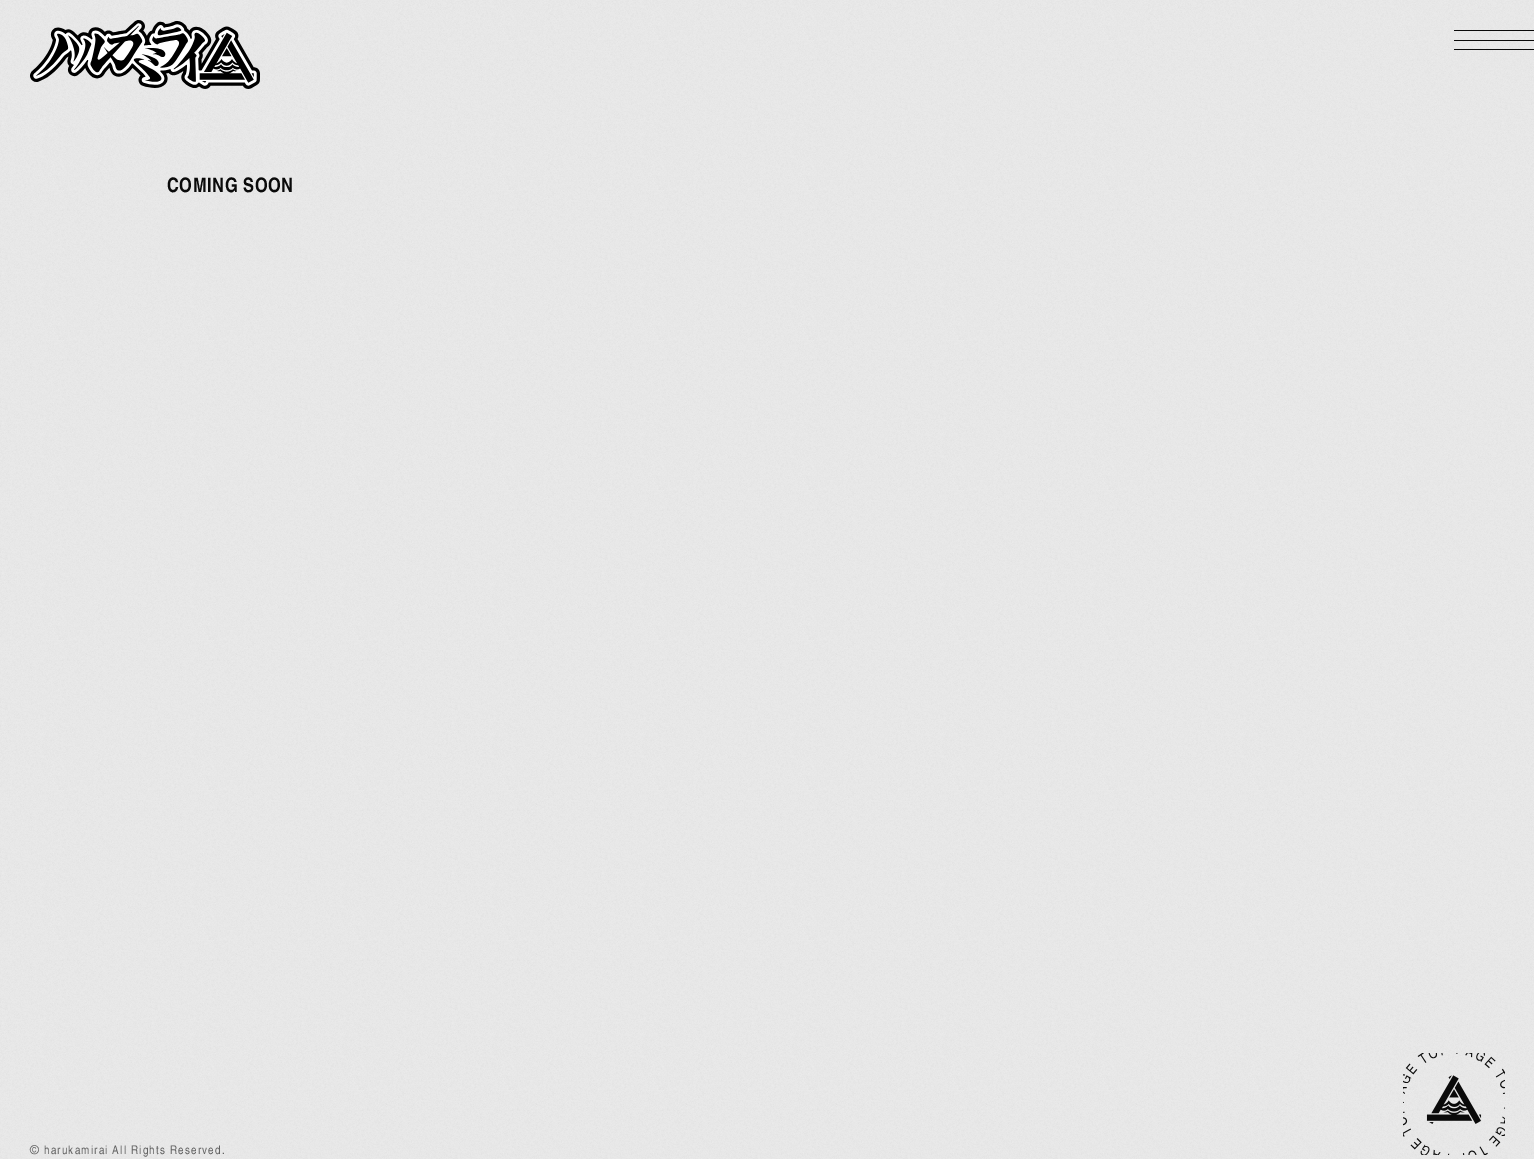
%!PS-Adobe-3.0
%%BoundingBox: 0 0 1534 1159
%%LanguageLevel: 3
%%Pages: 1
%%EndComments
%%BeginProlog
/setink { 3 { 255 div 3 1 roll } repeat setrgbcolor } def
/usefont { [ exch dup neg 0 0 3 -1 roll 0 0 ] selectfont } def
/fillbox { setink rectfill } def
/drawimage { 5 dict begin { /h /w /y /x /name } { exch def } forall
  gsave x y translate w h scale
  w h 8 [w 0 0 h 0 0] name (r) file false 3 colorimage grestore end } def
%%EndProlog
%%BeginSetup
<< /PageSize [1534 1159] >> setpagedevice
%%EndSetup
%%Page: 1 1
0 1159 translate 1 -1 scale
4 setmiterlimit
0 0 1534 1159 245 245 245 fillbox
(assets/img1.rgb) 0 0 1534 1159 drawimage
(assets/img2.rgb) 30 20 230 69 drawimage
1454 30 80 1 10 10 10 fillbox
1454 40 80 1 10 10 10 fillbox
1454 49 80 1 10 10 10 fillbox
/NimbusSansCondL-Bold 20 usefont
167 192 moveto 0.6 0 (COMING SOON) ashow
/NimbusSansCondL-Regular 12 usefont
98 98 98 setink
30 1154 moveto 1.2 0 (© harukamirai All Rights Reserved.) ashow
(assets/img3.rgb) 1403 1053 102 102 drawimage
(assets/img4.rgb) 1426 1075 56 49 drawimage
showpage
%%EOF
